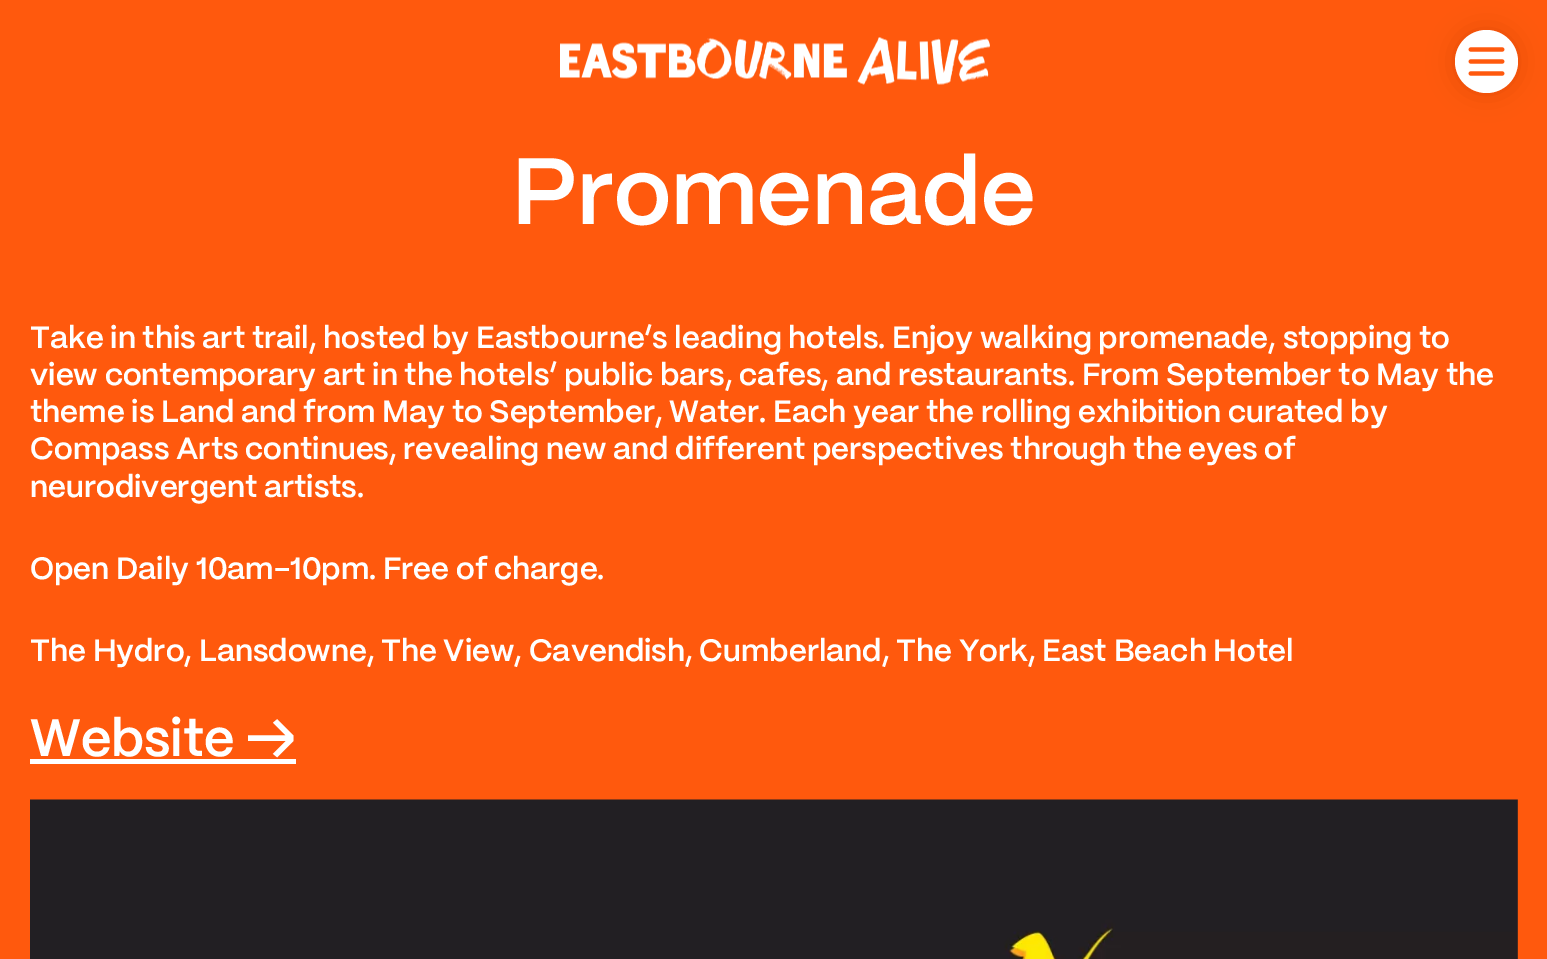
%!PS-Adobe-3.0
%%BoundingBox: 0 0 1547 959
%%LanguageLevel: 3
%%Pages: 1
%%EndComments
%%BeginProlog
/setink { 3 { 255 div 3 1 roll } repeat setrgbcolor } def
/usefont { [ exch dup neg 0 0 3 -1 roll 0 0 ] selectfont } def
/drawtext { setink usefont moveto show } def
/fillbox { setink rectfill } def
/setalpha { dup .setfillconstantalpha .setstrokeconstantalpha } def
/disc { newpath 0 360 arc closepath } def
/rrect { 5 dict begin { /r /h /w /y /x } { exch def } forall
  x r add y moveto x w add y 2 copy h add r arct x w add y h add x 1 index r arct
  x y h add x y r arct x y 2 copy exch w add exch r arct closepath end } def
/softshadow { 12 dict begin { /a /b /q /h /w /y /x } { exch def } forall gsave /was 0 def
  9 -2 -9 { dup b mul 4 div /e exch def 1 sub .425 mul 2.718 exch exp 1 add a .99 .min exch div /now exch def
    1 1 now sub 1 was sub div sub setalpha /was now def
    w h .min e 2 mul add 0 gt { x e sub y e sub w e 2 mul add h e 2 mul add
      q e add b .6 mul add w h .min 2 div e add .min 0 .max rrect fill } if } for grestore end } def
/drawimage { 5 dict begin { /h /w /y /x /name } { exch def } forall
  gsave x y translate w h scale
  w h 8 [w 0 0 h 0 0] name (r) file false 3 colorimage grestore end } def
%%EndProlog
%%BeginSetup
<< /PageSize [1547 959] /PageUsesTransparency true >> setpagedevice
%%EndSetup
%%Page: 1 1
0 .pushpdf14devicefilter
0 959 translate 1 -1 scale
4 setmiterlimit
0 0 1547 959 255 89 13 fillbox
(assets/img1.rgb) 560 37 430 48 drawimage
203 64 0 setink
1455 30 63 63 31.5 13.5 0.5 softshadow
255 255 255 setink
1486.5 61.5 31.5 disc fill
(assets/img2.rgb) 1468 47 37 29 drawimage
(Promenade) 512 224 /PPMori-SemiBold 94 255 255 255 drawtext
(Take in this art trail, hosted by Eastbourne’s leading hotels. Enjoy walking promenade, stopping to) 30 348 /PPMori-SemiBold 30.85 255 255 255 drawtext
(view contemporary art in the hotels’ public bars, cafes, and restaurants. From September to May the) 30 385 /PPMori-SemiBold 30.85 255 255 255 drawtext
(theme is Land and from May to September, Water. Each year the rolling exhibition curated by) 30 422 /PPMori-SemiBold 30.85 255 255 255 drawtext
(Compass Arts continues, revealing new and different perspectives through the eyes of) 30 459 /PPMori-SemiBold 30.85 255 255 255 drawtext
(neurodivergent artists.) 30 497 /PPMori-SemiBold 30.85 255 255 255 drawtext
(Open Daily 10am-10pm. Free of charge.) 30 579 /PPMori-SemiBold 30.85 255 255 255 drawtext
(The Hydro, Lansdowne, The View, Cavendish, Cumberland, The York, East Beach Hotel) 30 661 /PPMori-SemiBold 30.85 255 255 255 drawtext
(Website →) 30 756 /PPMori-SemiBold 52.5 255 255 255 drawtext
30 759 266 5 255 255 255 fillbox
(assets/img3.rgb) 30 799 1488 160 drawimage
.poppdf14devicefilter showpage
%%EOF
